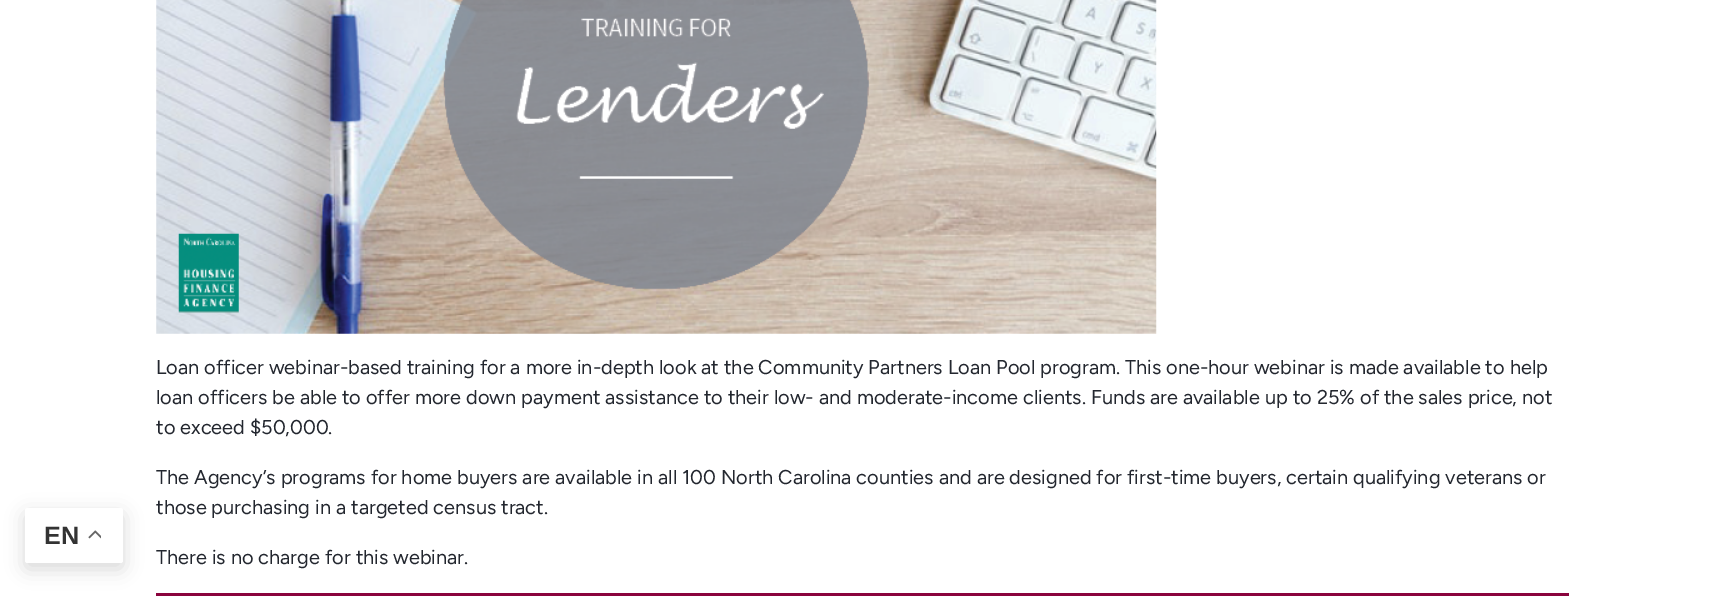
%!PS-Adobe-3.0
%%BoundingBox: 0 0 1723 596
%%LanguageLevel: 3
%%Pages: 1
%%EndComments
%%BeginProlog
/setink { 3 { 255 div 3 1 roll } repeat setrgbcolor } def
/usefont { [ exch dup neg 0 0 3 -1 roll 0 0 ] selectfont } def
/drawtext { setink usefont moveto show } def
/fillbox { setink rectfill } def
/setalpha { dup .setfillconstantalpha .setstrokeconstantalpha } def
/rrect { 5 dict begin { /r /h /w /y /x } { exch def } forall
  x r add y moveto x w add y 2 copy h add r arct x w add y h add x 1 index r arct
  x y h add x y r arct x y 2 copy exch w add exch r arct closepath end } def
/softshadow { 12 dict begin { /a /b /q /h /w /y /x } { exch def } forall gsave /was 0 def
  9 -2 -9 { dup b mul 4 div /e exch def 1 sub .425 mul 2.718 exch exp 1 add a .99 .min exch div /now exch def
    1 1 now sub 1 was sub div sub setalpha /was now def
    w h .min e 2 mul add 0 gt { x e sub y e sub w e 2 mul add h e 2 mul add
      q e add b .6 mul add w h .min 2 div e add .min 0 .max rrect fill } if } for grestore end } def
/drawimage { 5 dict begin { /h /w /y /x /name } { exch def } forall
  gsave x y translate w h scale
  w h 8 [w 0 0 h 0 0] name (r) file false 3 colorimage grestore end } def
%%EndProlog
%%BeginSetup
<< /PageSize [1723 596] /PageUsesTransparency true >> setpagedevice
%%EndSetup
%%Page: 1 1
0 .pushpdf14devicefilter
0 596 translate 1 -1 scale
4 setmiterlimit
0 0 1723 596 255 255 255 fillbox
0 0 0 setink
25 514 98 55 2.5 9.5 0.15 softshadow
255 255 255 setink
25 508 98 55 2.5 rrect fill
(EN) 44 544 /LiberationSans-Bold 25 51 51 51 drawtext
(assets/img1.rgb) 88 530 13 9 drawimage
(assets/img2.rgb) 156 0 1001 334 drawimage
(Loan officer webinar-based training for a more in-depth look at the Community Partners Loan Pool program. This one-hour webinar is made available to help) 156 374 /Figtree-Regular 20 35 39 47 drawtext
(loan officers be able to offer more down payment assistance to their low- and moderate-income clients. Funds are available up to 25% of the sales price, not) 156 404 /Figtree-Regular 20 35 39 47 drawtext
(to exceed $50,000.) 156 434 /Figtree-Regular 20 35 39 47 drawtext
(The Agency’s programs for home buyers are available in all 100 North Carolina counties and are designed for first-time buyers, certain qualifying veterans or) 156 484 /Figtree-Regular 20 35 39 47 drawtext
(those purchasing in a targeted census tract.) 156 514 /Figtree-Regular 20 35 39 47 drawtext
(There is no charge for this webinar.) 156 564 /Figtree-Regular 20 35 39 47 drawtext
156 593 1413 3 138 3 61 fillbox
.poppdf14devicefilter showpage
%%EOF
